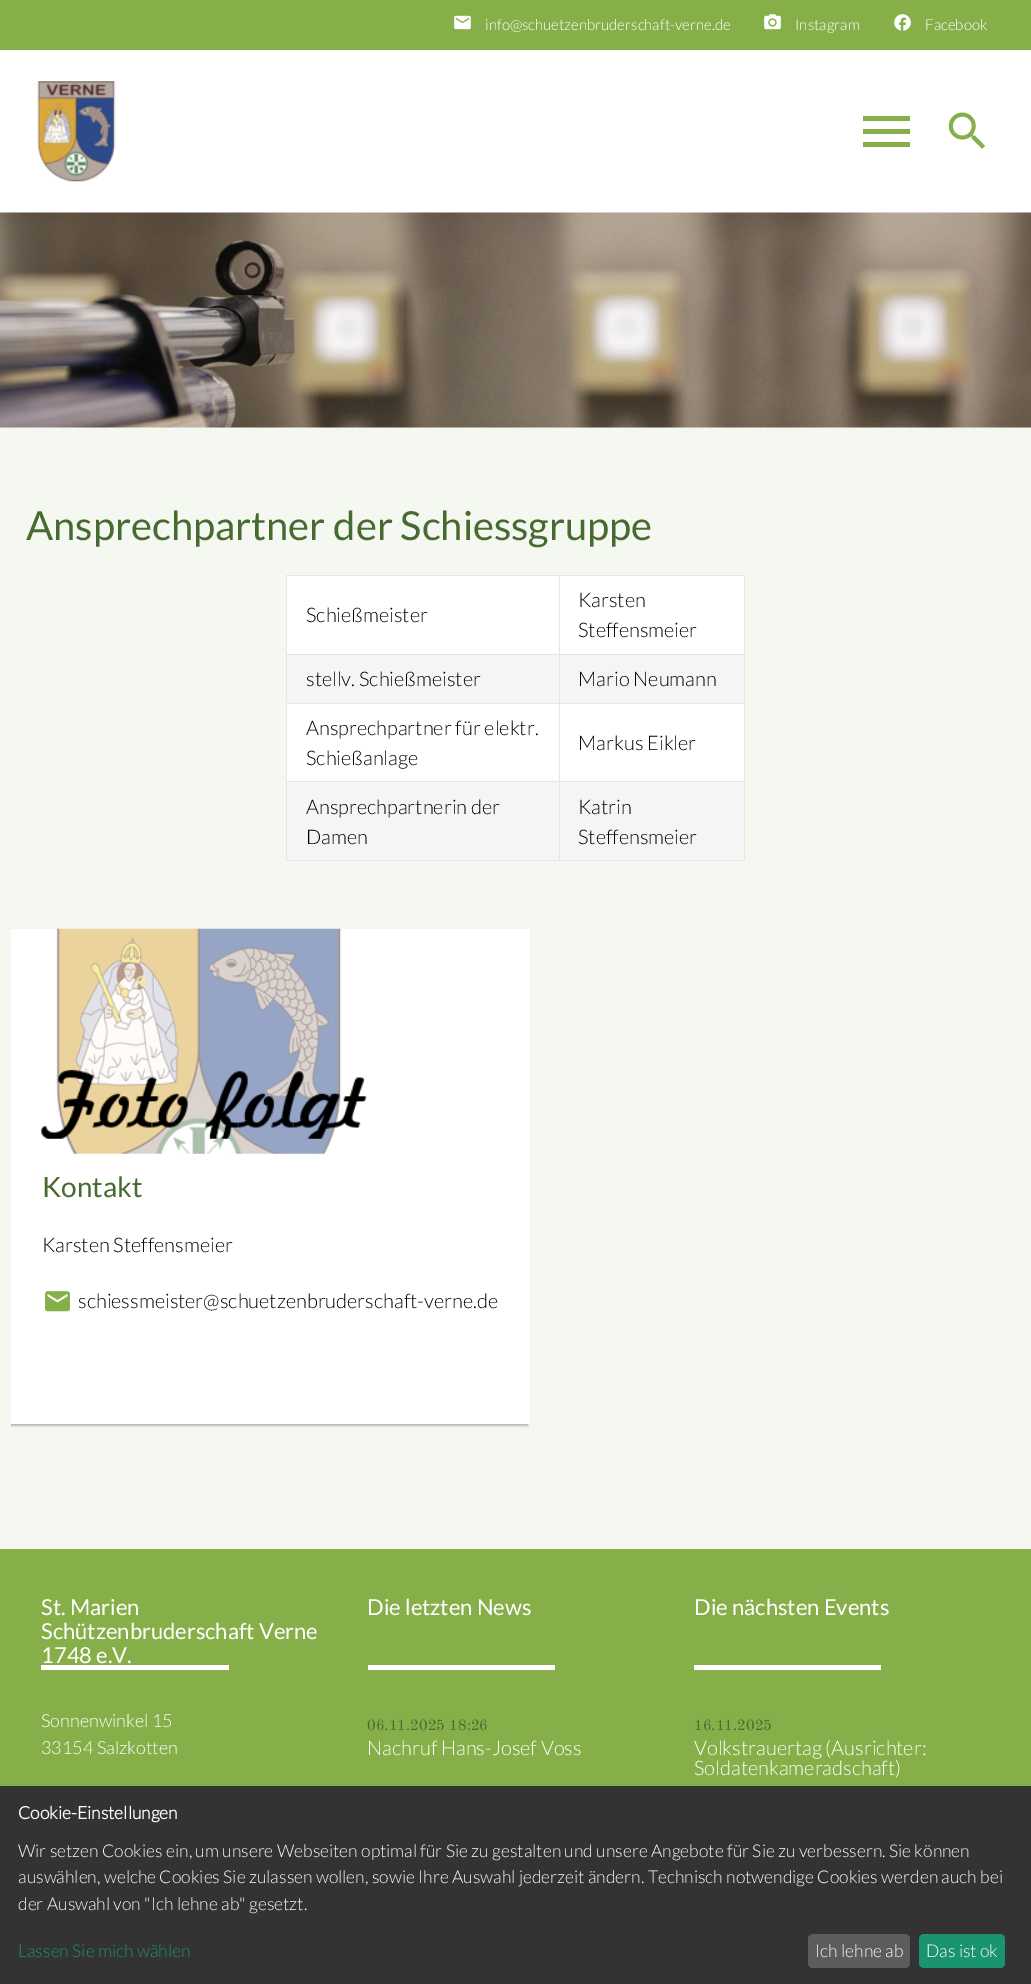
%!PS-Adobe-3.0
%%BoundingBox: 0 0 1031 1984
%%LanguageLevel: 3
%%Pages: 1
%%EndComments
%%BeginProlog
/setink { 3 { 255 div 3 1 roll } repeat setrgbcolor } def
/usefont { [ exch dup neg 0 0 3 -1 roll 0 0 ] selectfont } def
/drawtext { setink usefont moveto show } def
/fillbox { setink rectfill } def
/setalpha { dup .setfillconstantalpha .setstrokeconstantalpha } def
/rrect { 5 dict begin { /r /h /w /y /x } { exch def } forall
  x r add y moveto x w add y 2 copy h add r arct x w add y h add x 1 index r arct
  x y h add x y r arct x y 2 copy exch w add exch r arct closepath end } def
/softshadow { 12 dict begin { /a /b /q /h /w /y /x } { exch def } forall gsave /was 0 def
  9 -2 -9 { dup b mul 4 div /e exch def 1 sub .425 mul 2.718 exch exp 1 add a .99 .min exch div /now exch def
    1 1 now sub 1 was sub div sub setalpha /was now def
    w h .min e 2 mul add 0 gt { x e sub y e sub w e 2 mul add h e 2 mul add
      q e add b .6 mul add w h .min 2 div e add .min 0 .max rrect fill } if } for grestore end } def
/drawimage { 5 dict begin { /h /w /y /x /name } { exch def } forall
  gsave x y translate w h scale
  w h 8 [w 0 0 h 0 0] name (r) file false 3 colorimage grestore end } def
%%EndProlog
%%BeginSetup
<< /PageSize [1031 1984] /PageUsesTransparency true >> setpagedevice
%%EndSetup
%%Page: 1 1
0 .pushpdf14devicefilter
0 1984 translate 1 -1 scale
4 setmiterlimit
0 0 1031 1984 244 248 240 fillbox
0 0 1031 50 134 175 73 fillbox
(assets/img1.rgb) 454 15 17 15 drawimage
(info@schuetzenbruderschaft-verne.de) 485 30 /Lato-Light 15 255 255 255 drawtext
(assets/img2.rgb) 764 14 17 16 drawimage
(Instagram) 795 30 /Lato-Light 15 255 255 255 drawtext
(assets/img3.rgb) 894 14 17 17 drawimage
(Facebook) 925 30 /Lato-Light 15 255 255 255 drawtext
0 50 1031 163 255 255 255 fillbox
(assets/img4.rgb) 37 81 79 101 drawimage
134 175 73 setink
863 116 moveto 910 116 lineto 910 121 lineto 863 121 lineto closepath 863 134 moveto 863 129 lineto 910 129 lineto 910 134 lineto closepath 863 147 moveto 863 142 lineto 910 142 lineto 910 147 lineto closepath fill
(assets/img5.rgb) 948 112 38 37 drawimage
(assets/img6.rgb) 0 212 1031 216 drawimage
(Ansprechpartner der Schiessgruppe) 26 540 /Lato-Regular 40 71 106 48 drawtext
287 576 457 78 255 255 255 fillbox
286 654 459 1 230 230 230 fillbox
559 575 186 1 230 230 230 fillbox
287 655 457 48 245 245 245 fillbox
286 703 459 1 230 230 230 fillbox
287 704 457 77 255 255 255 fillbox
286 781 459 1 230 230 230 fillbox
287 782 457 78 245 245 245 fillbox
286 860 459 1 230 230 230 fillbox
559 654 1 207 230 230 230 fillbox
559 575 1 80 230 230 230 fillbox
286 575 274 1 230 230 230 fillbox
286 654 1 207 230 230 230 fillbox
286 575 1 80 230 230 230 fillbox
(Schießmeister) 306 622 /Lato-Light 20 0 0 0 drawtext
744 654 1 207 230 230 230 fillbox
744 575 1 80 230 230 230 fillbox
(Karsten) 578 607 /Lato-Light 20 0 0 0 drawtext
(Steffensmeier) 578 637 /Lato-Light 20 0 0 0 drawtext
(stellv. Schießmeister) 306 686 /Lato-Light 20 0 0 0 drawtext
(Mario Neumann) 578 686 /Lato-Light 20 0 0 0 drawtext
(Ansprechpartner für elektr.) 306 735 /Lato-Light 20 0 0 0 drawtext
(Schießanlage) 306 765 /Lato-Light 20 0 0 0 drawtext
(Markus Eikler) 578 750 /Lato-Light 20 0 0 0 drawtext
(Ansprechpartnerin der) 306 814 /Lato-Light 20 0 0 0 drawtext
(Damen) 306 844 /Lato-Light 20 0 0 0 drawtext
(Katrin) 578 814 /Lato-Light 20 0 0 0 drawtext
(Steffensmeier) 578 844 /Lato-Light 20 0 0 0 drawtext
gsave
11 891 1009 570 rectclip
9 931 519 495 0 1 0.25 softshadow
grestore
11 929 519 495 255 255 255 fillbox
(assets/img7.rgb) 41 928 326 226 drawimage
(Kontakt) 42 1197 /Lato-Regular 28 71 106 48 drawtext
(Karsten Steffensmeier) 42 1252 /Lato-Light 20 0 0 0 drawtext
(assets/img8.rgb) 45 1291 25 21 drawimage
(schiessmeister@schuetzenbruderschaft-verne.de) 78 1308 /Lato-Light 20 0 0 0 drawtext
0 1549 1031 237 134 175 73 fillbox
(St. Marien) 41 1615 /Lato-Regular 22 255 255 255 drawtext
(Schützenbruderschaft Verne) 41 1639 /Lato-Regular 22 255 255 255 drawtext
(1748 e.V.) 41 1663 /Lato-Regular 22 255 255 255 drawtext
41 1665 188 5 255 255 255 fillbox
(Sonnenwinkel 15) 41 1727 /Lato-Light 18 255 255 255 drawtext
(33154 Salzkotten) 41 1754 /Lato-Light 18 255 255 255 drawtext
(Die letzten News) 367 1615 /Lato-Regular 22 255 255 255 drawtext
368 1665 187 5 255 255 255 fillbox
(06.11.2025 18:26) 367 1730 /OldStandardTT-Regular 15 71 106 48 drawtext
(Nachruf Hans-Josef Voss) 367 1755 /Lato-Light 20 255 255 255 drawtext
(Die nächsten Events) 694 1615 /Lato-Regular 22 255 255 255 drawtext
694 1665 187 5 255 255 255 fillbox
(16.11.2025) 694 1730 /OldStandardTT-Regular 15 71 106 48 drawtext
(Volkstrauertag \(Ausrichter:) 694 1755 /Lato-Light 20 255 255 255 drawtext
(Soldatenkameradschaft\)) 694 1775 /Lato-Light 20 255 255 255 drawtext
0 1786 1031 198 51 51 51 fillbox
(Cookie-Einstellungen) 18 1819 /Lato-Bold 17.5 255 255 255 drawtext
(Wir setzen Cookies ein, um unsere Webseiten optimal für Sie zu gestalten und unsere Angebote für Sie zu verbessern. Sie können) 18 1857 /Lato-Light 17.5 255 255 255 drawtext
(auswählen, welche Cookies Sie zulassen wollen, sowie Ihre Auswahl jederzeit ändern. Technisch notwendige Cookies werden auch bei) 18 1883 /Lato-Light 17.5 255 255 255 drawtext
(der Auswahl von "Ich lehne ab" gesetzt.) 18 1910 /Lato-Light 17.5 255 255 255 drawtext
(Lassen Sie mich wählen) 18 1957 /Lato-Light 17.5 26 147 111 drawtext
92 92 92 setink
808 1934 102 34 5 rrect fill
(Ich lehne ab) 815 1957 /Lato-Light 17.5 255 255 255 drawtext
26 147 111 setink
919 1934 86 34 5 rrect fill
(Das ist ok) 926 1957 /Lato-Light 17.5 255 255 255 drawtext
.poppdf14devicefilter showpage
%%EOF
